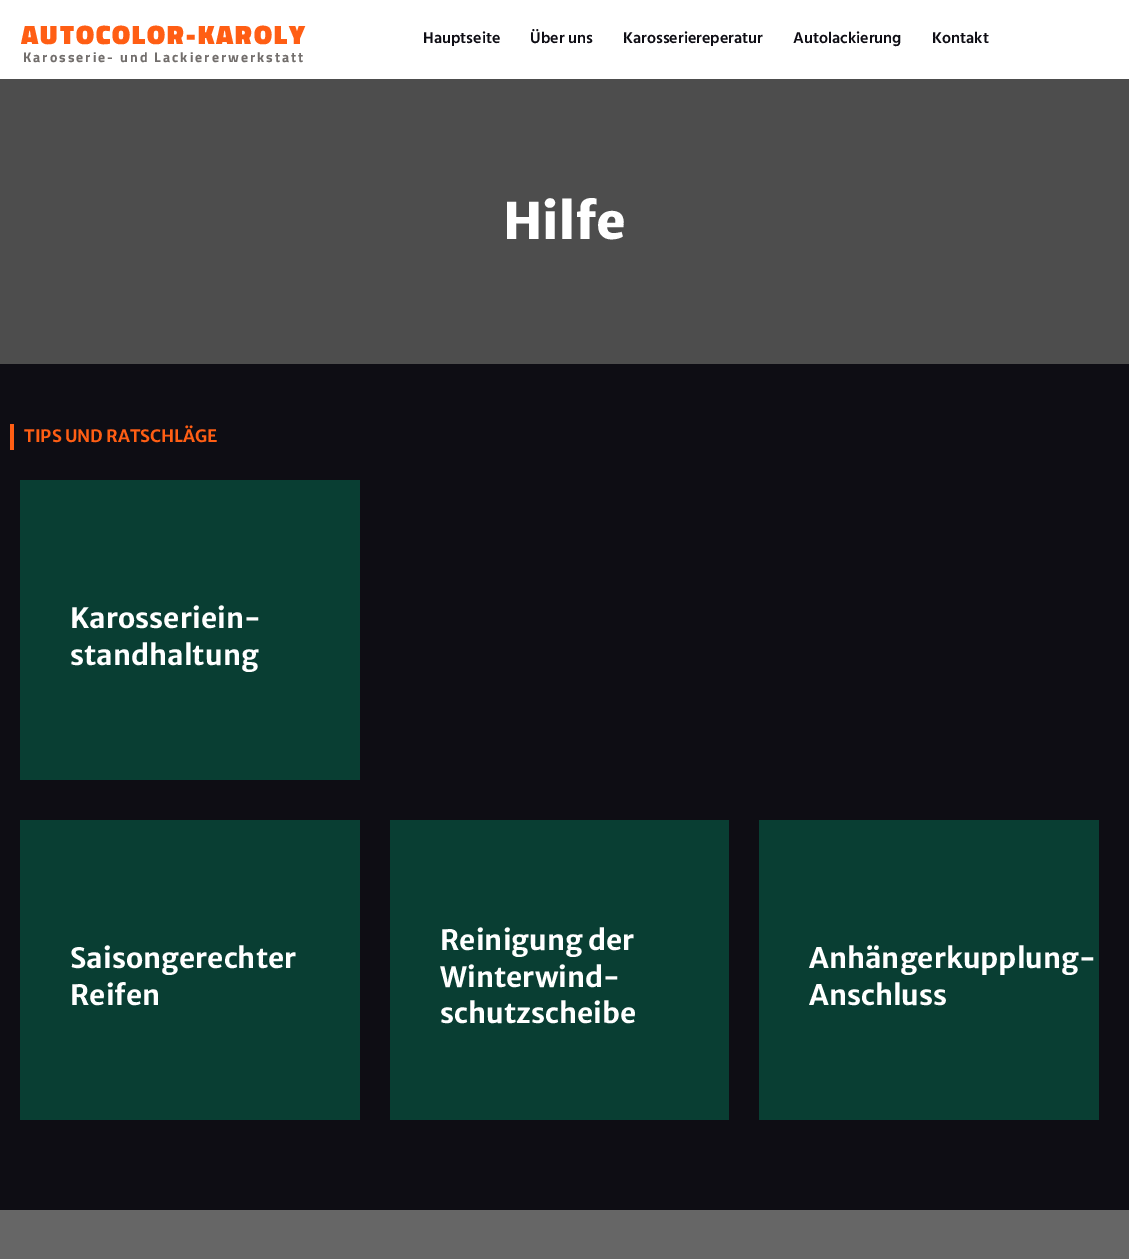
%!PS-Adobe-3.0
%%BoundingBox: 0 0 1129 1259
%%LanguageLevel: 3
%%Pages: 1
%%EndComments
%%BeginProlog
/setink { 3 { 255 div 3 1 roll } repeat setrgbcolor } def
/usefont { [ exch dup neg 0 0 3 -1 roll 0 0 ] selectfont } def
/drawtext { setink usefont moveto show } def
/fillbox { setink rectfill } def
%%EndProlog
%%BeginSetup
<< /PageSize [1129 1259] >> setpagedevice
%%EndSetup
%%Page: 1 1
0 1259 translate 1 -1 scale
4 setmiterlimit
0 0 1129 1259 255 255 255 fillbox
/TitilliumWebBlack-Black 27 usefont
255 94 20 setink
21 44 moveto 2 0 (AUTOCOLOR-KAROLY) ashow
/TitilliumWeb-Bold 14 usefont
114 110 108 setink
23 62 moveto 2 0 (Karosserie- und Lackiererwerkstatt) ashow
(Hauptseite) 423 43 /HindVadodara-SemiBold 16 14 13 20 drawtext
(Über uns) 530 43 /HindVadodara-SemiBold 16 14 13 20 drawtext
(Karosseriereperatur) 623 43 /HindVadodara-SemiBold 16 14 13 20 drawtext
(Autolackierung) 793 43 /HindVadodara-SemiBold 16 14 13 20 drawtext
(Kontakt) 932 43 /HindVadodara-SemiBold 16 14 13 20 drawtext
0 79 1129 285 77 77 77 fillbox
(Hilfe) 503 239 /MerriweatherSans-ExtraBold 50 255 255 255 drawtext
0 364 1129 846 14 13 20 fillbox
10 424 4 26 255 94 20 fillbox
(TIPS UND RATSCHLÄGE) 24 442 /MerriweatherSans-Bold 17 255 94 20 drawtext
20 480 340 300 9 62 51 fillbox
(Karosseriein-) 70 628 /MerriweatherSans-Bold 28 255 255 255 drawtext
(standhaltung) 70 665 /MerriweatherSans-Bold 28 255 255 255 drawtext
20 820 340 300 9 62 51 fillbox
(Saisongerechter) 70 968 /MerriweatherSans-Bold 28 255 255 255 drawtext
(Reifen) 70 1005 /MerriweatherSans-Bold 28 255 255 255 drawtext
390 820 339 300 9 62 51 fillbox
(Reinigung der) 440 950 /MerriweatherSans-Bold 28 255 255 255 drawtext
(Winterwind-) 440 987 /MerriweatherSans-Bold 28 255 255 255 drawtext
(schutzscheibe) 440 1023 /MerriweatherSans-Bold 28 255 255 255 drawtext
759 820 340 300 9 62 51 fillbox
(Anhängerkupplung-) 809 968 /MerriweatherSans-Bold 28 255 255 255 drawtext
(Anschluss) 809 1005 /MerriweatherSans-Bold 28 255 255 255 drawtext
0 1210 1129 49 102 102 102 fillbox
showpage
%%EOF
